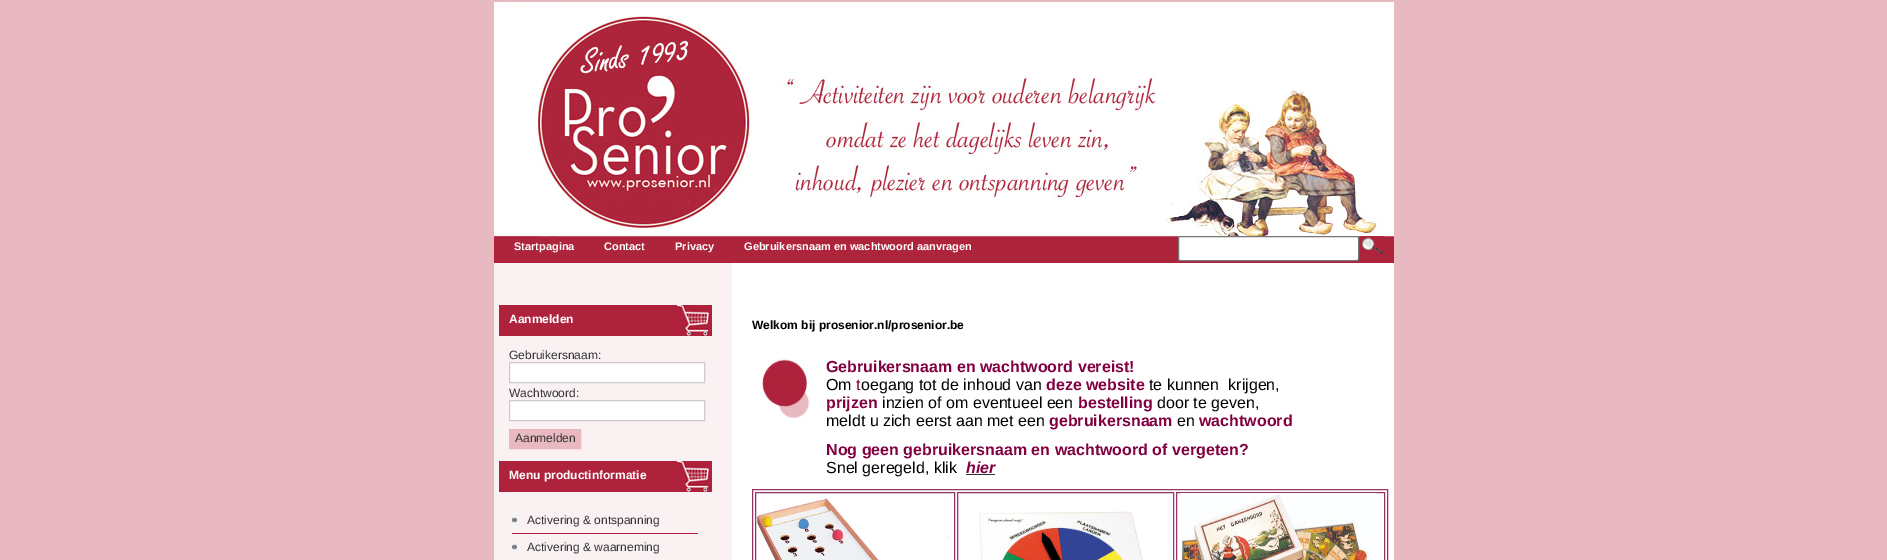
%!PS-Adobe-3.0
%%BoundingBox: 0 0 1887 560
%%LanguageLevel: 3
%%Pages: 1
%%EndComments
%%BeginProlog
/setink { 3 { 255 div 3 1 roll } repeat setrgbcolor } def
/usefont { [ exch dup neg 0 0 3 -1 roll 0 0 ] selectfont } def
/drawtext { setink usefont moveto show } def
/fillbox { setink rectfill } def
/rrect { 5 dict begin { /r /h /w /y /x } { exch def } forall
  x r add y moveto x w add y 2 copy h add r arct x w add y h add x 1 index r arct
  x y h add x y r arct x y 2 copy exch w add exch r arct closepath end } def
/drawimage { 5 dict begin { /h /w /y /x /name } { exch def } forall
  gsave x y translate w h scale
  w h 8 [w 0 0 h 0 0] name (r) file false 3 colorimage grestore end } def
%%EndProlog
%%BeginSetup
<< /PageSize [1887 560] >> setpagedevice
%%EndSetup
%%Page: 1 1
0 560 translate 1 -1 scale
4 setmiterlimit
0 0 1887 560 232 185 193 fillbox
732 263 662 297 255 255 255 fillbox
494 263 238 297 250 241 242 fillbox
(assets/img1.rgb) 494 0 900 263 drawimage
(Startpagina) 514 250 /LiberationSans-Bold 11 255 255 255 drawtext
(Contact) 604 250 /LiberationSans-Bold 11 255 255 255 drawtext
(Privacy) 675 250 /LiberationSans-Bold 11 255 255 255 drawtext
(Gebruikersnaam en wachtwoord aanvragen) 744 250 /LiberationSans-Bold 11 255 255 255 drawtext
1178.5 236.5 180 24 1.5 rrect gsave fill grestore
118 118 118 setink
stroke
(assets/img2.rgb) 1361 236 23 19 drawimage
(assets/img3.rgb) 499 305 213 31 drawimage
(Aanmelden) 509 323 /LiberationSans-Bold 12 255 255 255 drawtext
(Gebruikersnaam:) 509 359 /LiberationSans-Regular 12 51 51 51 drawtext
255 255 255 setink
509.5 362.5 moveto 704.5 362.5 lineto 704.5 382.5 lineto 509.5 382.5 lineto closepath gsave fill grestore
204 204 204 setink
stroke
(Wachtwoord:) 509 397 /LiberationSans-Regular 12 51 51 51 drawtext
255 255 255 setink
509.5 400.5 moveto 704.5 400.5 lineto 704.5 420.5 lineto 509.5 420.5 lineto closepath gsave fill grestore
204 204 204 setink
stroke
232 185 193 setink
509.5 429.5 moveto 580.5 429.5 lineto 580.5 448.5 lineto 509.5 448.5 lineto closepath gsave fill grestore
stroke
(Aanmelden) 515 442 /LiberationSans-Regular 12 51 51 51 drawtext
(assets/img3.rgb) 499 461 213 31 drawimage
(Menu productinformatie) 509 479 /LiberationSans-Bold 12 255 255 255 drawtext
512 533 186 1 174 34 60 fillbox
(assets/img4.rgb) 512 517 5 6 drawimage
(Activering & ontspanning) 527 524 /LiberationSans-Regular 12 51 51 51 drawtext
(assets/img4.rgb) 512 544 5 6 drawimage
(Activering & waarneming) 527 551 /LiberationSans-Regular 12 51 51 51 drawtext
(Welkom bij prosenior.nl/prosenior.be) 752 329 /LiberationSans-Bold 12 0 0 0 drawtext
(assets/img5.rgb) 762 359 48 60 drawimage
(Gebruikersnaam en wachtwoord vereist!) 826 372 /LiberationSans-Bold 16 128 0 64 drawtext
(Om) 826 390 /LiberationSans-Regular 16 0 0 0 drawtext
(t) 856 390 /LiberationSans-Regular 16 128 0 64 drawtext
(oegang tot de inhoud van) 861 390 /LiberationSans-Regular 16 0 0 0 drawtext
(deze website) 1046 390 /LiberationSans-Bold 16 128 0 64 drawtext
(te kunnen  krijgen,) 1149 390 /LiberationSans-Regular 16 0 0 0 drawtext
(prijzen) 826 408 /LiberationSans-Bold 16 128 0 64 drawtext
(inzien of om eventueel een) 882 408 /LiberationSans-Regular 16 0 0 0 drawtext
(bestelling) 1078 408 /LiberationSans-Bold 16 128 0 64 drawtext
(door te geven,) 1157 408 /LiberationSans-Regular 16 0 0 0 drawtext
(meldt u zich eerst aan met een) 826 426 /LiberationSans-Regular 16 0 0 0 drawtext
(gebruikersnaam) 1049 426 /LiberationSans-Bold 16 128 0 64 drawtext
(en) 1177 426 /LiberationSans-Regular 16 0 0 0 drawtext
(wachtwoord) 1199 426 /LiberationSans-Bold 16 128 0 64 drawtext
(Nog geen gebruikersnaam en wachtwoord of vergeten?) 826 455 /LiberationSans-Bold 16 128 0 64 drawtext
(Snel geregeld, klik) 826 473 /LiberationSans-Regular 16 0 0 0 drawtext
(hier) 966 473 /LiberationSans-BoldItalic 16 128 0 64 drawtext
966 474 29 1 51 51 51 fillbox
153 51 102 setink
752.5 489.5 635 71 rectstroke
755.5 492.5 199 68 rectstroke
(assets/img6.rgb) 757 496 191 64 drawimage
957.5 492.5 216 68 rectstroke
(assets/img7.rgb) 979 511 164 49 drawimage
1176.5 492.5 208 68 rectstroke
(assets/img8.rgb) 1181 493 196 67 drawimage
showpage
%%EOF
